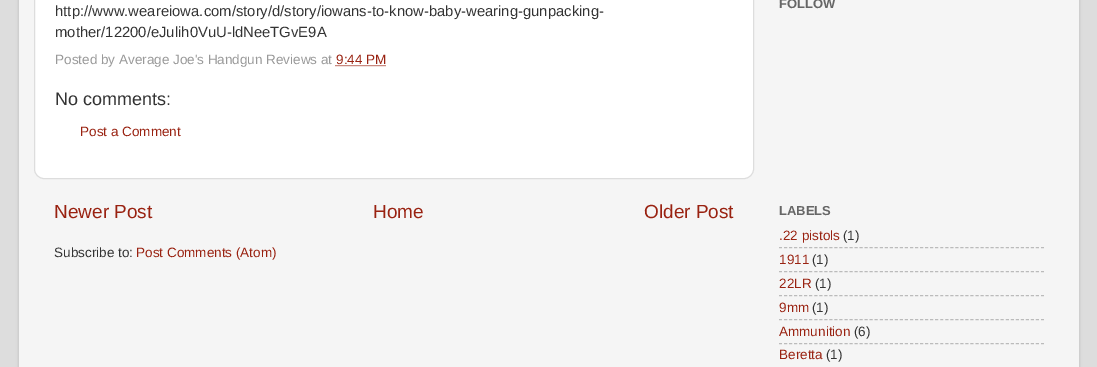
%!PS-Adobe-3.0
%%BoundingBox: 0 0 1097 367
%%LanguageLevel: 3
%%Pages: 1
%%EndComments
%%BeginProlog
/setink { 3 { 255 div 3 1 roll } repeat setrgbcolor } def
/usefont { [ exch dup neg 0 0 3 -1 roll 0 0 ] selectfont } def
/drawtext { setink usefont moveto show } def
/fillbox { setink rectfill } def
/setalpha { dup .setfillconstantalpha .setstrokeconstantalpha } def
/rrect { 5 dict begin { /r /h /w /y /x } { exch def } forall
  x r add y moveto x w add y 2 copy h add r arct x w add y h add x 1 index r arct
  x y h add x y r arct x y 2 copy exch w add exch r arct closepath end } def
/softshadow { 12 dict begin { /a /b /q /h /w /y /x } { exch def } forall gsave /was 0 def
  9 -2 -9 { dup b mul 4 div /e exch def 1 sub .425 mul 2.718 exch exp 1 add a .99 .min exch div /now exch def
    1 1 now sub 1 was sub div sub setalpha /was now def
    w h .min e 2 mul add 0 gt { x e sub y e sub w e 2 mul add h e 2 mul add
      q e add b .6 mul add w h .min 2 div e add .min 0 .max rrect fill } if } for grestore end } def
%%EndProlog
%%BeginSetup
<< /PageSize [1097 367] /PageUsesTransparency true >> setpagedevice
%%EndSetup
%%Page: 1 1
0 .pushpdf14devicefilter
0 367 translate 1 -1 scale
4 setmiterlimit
0 0 1097 367 221 221 221 fillbox
0 0 0 setink
19 -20 1060 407 15 1.5 0.15 softshadow
19 0 1060 367 245 245 245 fillbox
255 255 255 setink
34.5 -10.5 719 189 9.5 rrect gsave fill grestore
221 221 221 setink
stroke
(http://www.weareiowa.com/story/d/story/iowans-to-know-baby-wearing-gunpacking-) 55 16 /LiberationSans-Regular 14.85 51 51 51 drawtext
(mother/12200/eJulih0VuU-ldNeeTGvE9A) 55 37 /LiberationSans-Regular 14.85 51 51 51 drawtext
(Posted by Average Joe's Handgun Reviews at) 55 64 /LiberationSans-Regular 13.5 153 153 153 drawtext
(9:44 PM) 336 64 /LiberationSans-Regular 13.5 153 34 17 drawtext
[1 1] 0 setdash
335.5 65.5 moveto 386 65.5 lineto stroke
(No comments:) 55 105 /LiberationSans-Regular 18 51 51 51 drawtext
(Post a Comment) 80 136 /LiberationSans-Regular 13.5 153 34 17 drawtext
(Newer Post) 54 218 /LiberationSans-Regular 19 153 34 17 drawtext
(Home) 373 218 /LiberationSans-Regular 19 153 34 17 drawtext
(Older Post) 644 218 /LiberationSans-Regular 19 153 34 17 drawtext
(Subscribe to:) 54 257 /LiberationSans-Regular 13.5 51 51 51 drawtext
(Post Comments \(Atom\)) 136 257 /LiberationSans-Regular 13.5 153 34 17 drawtext
(FOLLOW) 779 8 /LiberationSans-Bold 13 102 102 102 drawtext
(LABELS) 779 215 /LiberationSans-Bold 13 102 102 102 drawtext
(.22 pistols) 779 240 /LiberationSans-Regular 13.5 153 34 17 drawtext
(\(1\)) 843 240 /LiberationSans-Regular 13.5 51 51 51 drawtext
187 187 187 setink
[3 2.04] 0 setdash
779 247.5 moveto 1044 247.5 lineto stroke
(1911) 779 264 /LiberationSans-Regular 13.5 153 34 17 drawtext
(\(1\)) 812 264 /LiberationSans-Regular 13.5 51 51 51 drawtext
187 187 187 setink
779 271.5 moveto 1044 271.5 lineto stroke
(22LR) 779 288 /LiberationSans-Regular 13.5 153 34 17 drawtext
(\(1\)) 815 288 /LiberationSans-Regular 13.5 51 51 51 drawtext
187 187 187 setink
779 295.5 moveto 1044 295.5 lineto stroke
(9mm) 779 312 /LiberationSans-Regular 13.5 153 34 17 drawtext
(\(1\)) 812 312 /LiberationSans-Regular 13.5 51 51 51 drawtext
187 187 187 setink
779 319.5 moveto 1044 319.5 lineto stroke
(Ammunition) 779 336 /LiberationSans-Regular 13.5 153 34 17 drawtext
(\(6\)) 854 336 /LiberationSans-Regular 13.5 51 51 51 drawtext
187 187 187 setink
779 343.5 moveto 1044 343.5 lineto stroke
(Beretta) 779 359 /LiberationSans-Regular 13.5 153 34 17 drawtext
(\(1\)) 826 359 /LiberationSans-Regular 13.5 51 51 51 drawtext
.poppdf14devicefilter showpage
%%EOF
